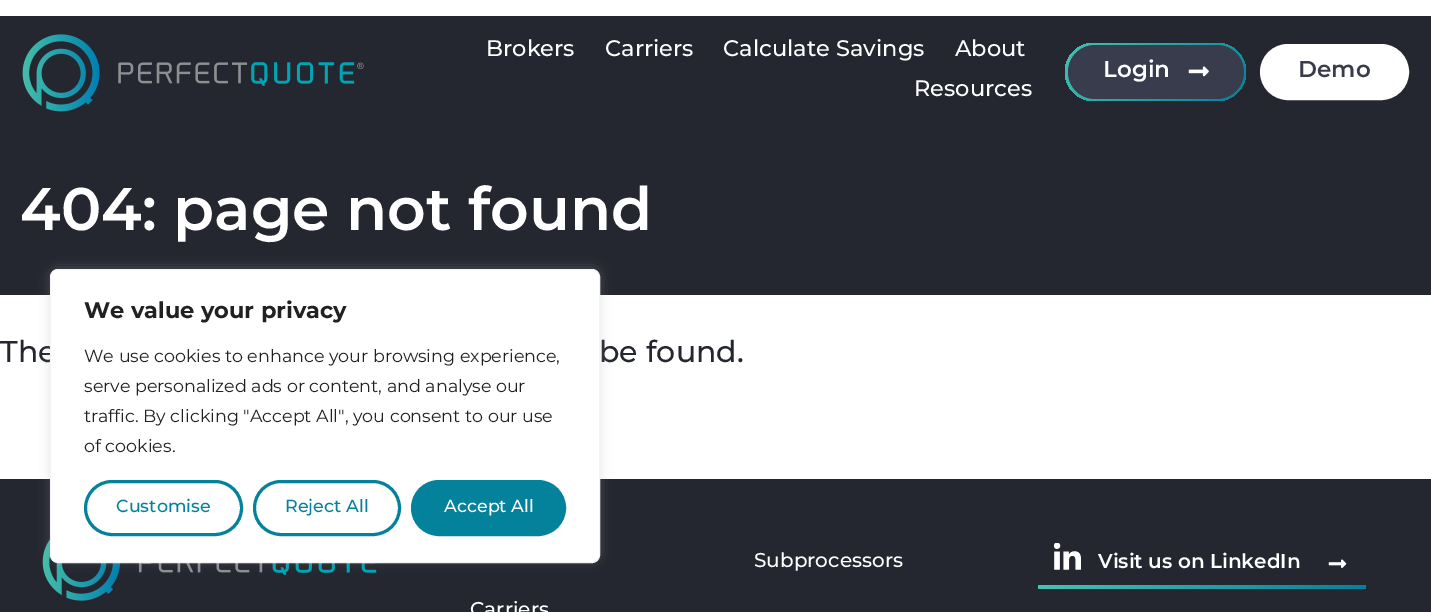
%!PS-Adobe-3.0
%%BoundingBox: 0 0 1431 612
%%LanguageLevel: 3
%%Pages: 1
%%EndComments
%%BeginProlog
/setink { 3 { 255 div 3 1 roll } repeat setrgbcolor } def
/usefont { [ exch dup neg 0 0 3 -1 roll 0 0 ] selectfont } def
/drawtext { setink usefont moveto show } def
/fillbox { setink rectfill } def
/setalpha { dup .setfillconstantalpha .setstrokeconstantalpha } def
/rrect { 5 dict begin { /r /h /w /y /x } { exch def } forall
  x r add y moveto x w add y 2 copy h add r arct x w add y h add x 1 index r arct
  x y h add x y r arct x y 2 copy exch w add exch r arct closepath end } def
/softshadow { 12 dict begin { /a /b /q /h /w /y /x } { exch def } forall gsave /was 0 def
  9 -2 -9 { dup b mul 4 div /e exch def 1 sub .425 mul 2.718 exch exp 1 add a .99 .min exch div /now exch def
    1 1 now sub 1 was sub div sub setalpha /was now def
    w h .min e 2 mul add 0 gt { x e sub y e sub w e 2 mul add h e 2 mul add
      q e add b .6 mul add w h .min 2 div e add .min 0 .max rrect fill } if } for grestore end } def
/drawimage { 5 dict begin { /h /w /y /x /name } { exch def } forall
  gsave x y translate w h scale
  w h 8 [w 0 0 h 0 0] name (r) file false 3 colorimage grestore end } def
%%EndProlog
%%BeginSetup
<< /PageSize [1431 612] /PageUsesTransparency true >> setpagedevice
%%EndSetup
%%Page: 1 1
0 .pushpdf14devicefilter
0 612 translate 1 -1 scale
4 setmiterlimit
0 0 1431 612 255 255 255 fillbox
0 16 1431 279 36 38 48 fillbox
(assets/img1.rgb) 22 34 342 78 drawimage
(Brokers) 486 56 /Montserrat-Medium 22.5 255 255 255 drawtext
(Carriers) 605 56 /Montserrat-Medium 22.5 255 255 255 drawtext
(Calculate Savings) 723 56 /Montserrat-Medium 22.5 255 255 255 drawtext
(About) 955 56 /Montserrat-Medium 22.5 255 255 255 drawtext
(Resources) 914 96 /Montserrat-Medium 22.5 255 255 255 drawtext
gsave 1065 43 181 58 29 rrect clip newpath
<< /ShadingType 2 /ColorSpace /DeviceRGB /Coords [1216 132 1096 12] /Extend [true true] /Function << /FunctionType 2 /Domain [0 1] /C0 [0.016 0.506 0.608] /C1 [0.278 0.761 0.694] /N 1 >> >> shfill grestore
56 60 76 setink
1068 45 176 54 27 rrect fill
(Login) 1103 77 /Montserrat-SemiBold 23 255 255 255 drawtext
(assets/img2.rgb) 1188 66 21 11 drawimage
1261.5 45.5 146 53 26.5 rrect gsave fill grestore
3 setlinewidth
stroke
(Demo) 1298 77 /Montserrat-SemiBold 23 56 60 76 drawtext
(404: page not found) 20 230 /Montserrat-SemiBold 60 255 255 255 drawtext
(The) 0 362 /Montserrat-Medium 30 36 38 48 drawtext
(be found.) 599 362 /Montserrat-Medium 30 36 38 48 drawtext
0 479 1431 133 36 38 48 fillbox
(assets/img3.rgb) 42 539 335 62 drawimage
172 171 171 setink
50 268 550 293 8 6 0.3 softshadow
255 255 255 setink
50.5 269.5 549 293 7.5 rrect gsave fill grestore
244 244 244 setink
1 setlinewidth
stroke
(We value your privacy) 84 318 /Montserrat-Bold 22.5 33 33 33 drawtext
(We use cookies to enhance your browsing experience,) 84 362 /Montserrat-Regular 17.5 33 33 33 drawtext
(serve personalized ads or content, and analyse our) 84 392 /Montserrat-Regular 17.5 33 33 33 drawtext
(traffic. By clicking "Accept All", you consent to our use) 84 422 /Montserrat-Regular 17.5 33 33 33 drawtext
(of cookies.) 84 452 /Montserrat-Regular 17.5 33 33 33 drawtext
4 129 155 setink
3 setlinewidth
85.5 481.5 156 53 26.5 rrect stroke
(Customise) 116 512 /Montserrat-Medium 17.5 4 129 155 drawtext
254.5 481.5 145 53 26.5 rrect stroke
(Reject All) 285 512 /Montserrat-Medium 17.5 4 129 155 drawtext
412.5 481.5 152 53 26.5 rrect gsave fill grestore
stroke
(Accept All) 444 512 /Montserrat-Medium 17.5 255 255 255 drawtext
(Subprocessors) 754 567 /Montserrat-Medium 20 255 255 255 drawtext
(assets/img4.rgb) 1054 543 27 27 drawimage
(Visit us on LinkedIn) 1098 568 /Montserrat-SemiBold 20 255 255 255 drawtext
(assets/img5.rgb) 1328 559 19 9 drawimage
gsave 1038 585 moveto 1366 585 lineto 1366 589 lineto 1038 589 lineto closepath clip newpath
<< /ShadingType 2 /ColorSpace /DeviceRGB /Coords [1285 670 1119 504] /Extend [true true] /Function << /FunctionType 2 /Domain [0 1] /C0 [0.016 0.506 0.608] /C1 [0.278 0.761 0.694] /N 1 >> >> shfill grestore
(Carriers) 470 616 /Montserrat-Medium 20 255 255 255 drawtext
.poppdf14devicefilter showpage
%%EOF
